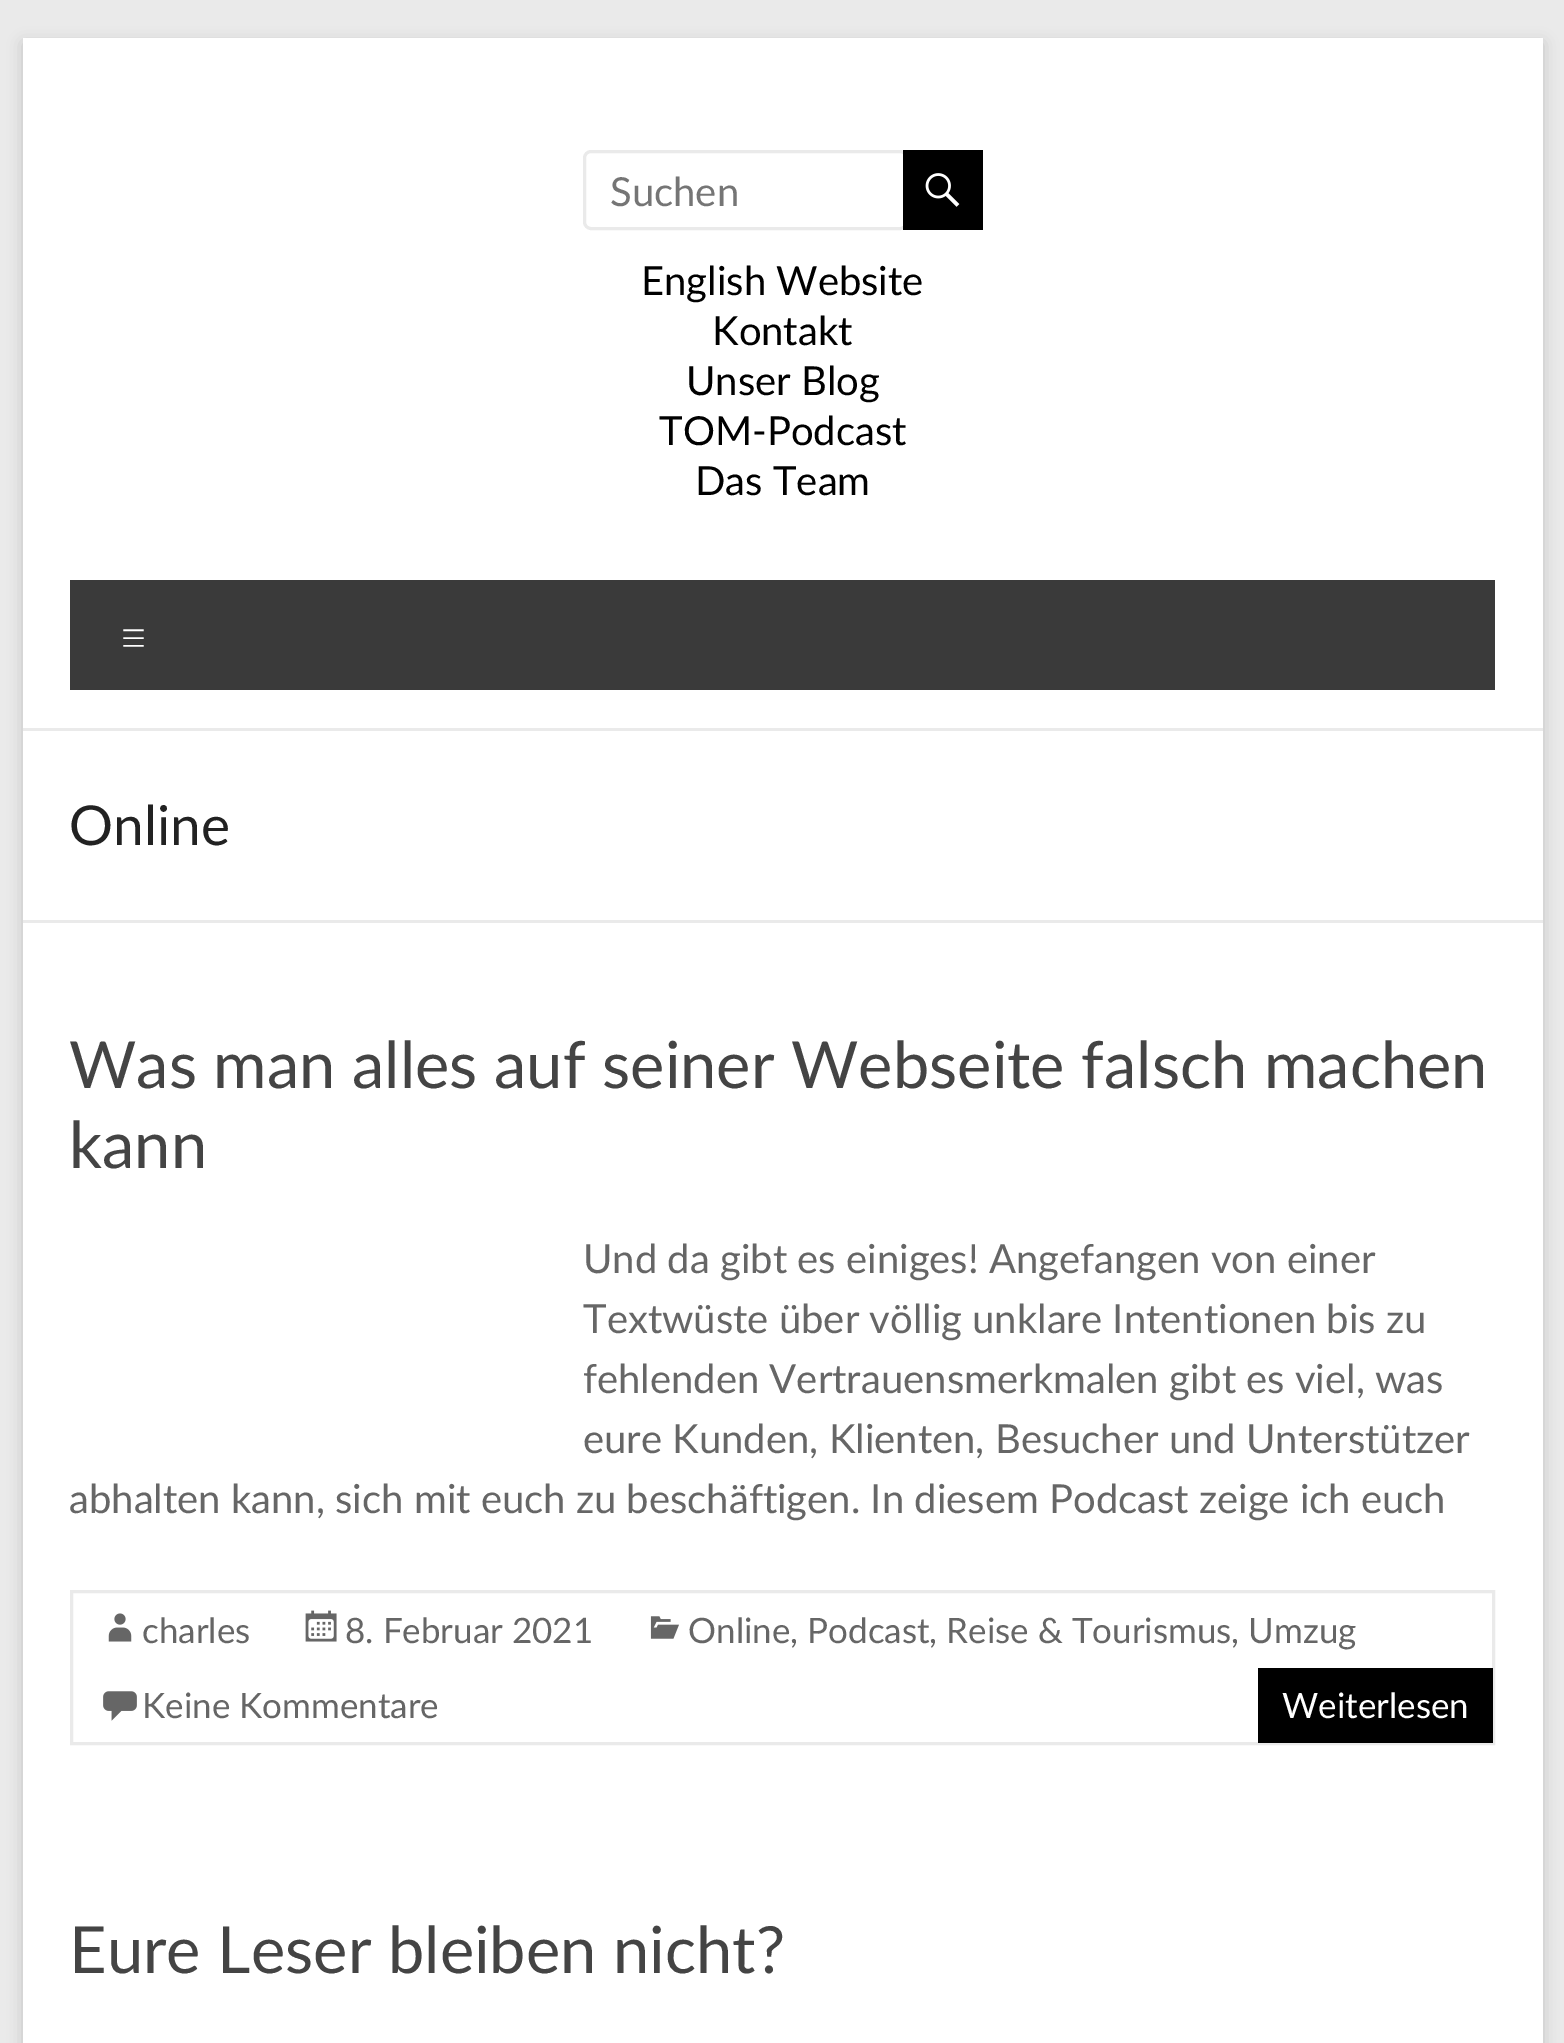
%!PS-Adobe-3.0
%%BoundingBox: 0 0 1564 2043
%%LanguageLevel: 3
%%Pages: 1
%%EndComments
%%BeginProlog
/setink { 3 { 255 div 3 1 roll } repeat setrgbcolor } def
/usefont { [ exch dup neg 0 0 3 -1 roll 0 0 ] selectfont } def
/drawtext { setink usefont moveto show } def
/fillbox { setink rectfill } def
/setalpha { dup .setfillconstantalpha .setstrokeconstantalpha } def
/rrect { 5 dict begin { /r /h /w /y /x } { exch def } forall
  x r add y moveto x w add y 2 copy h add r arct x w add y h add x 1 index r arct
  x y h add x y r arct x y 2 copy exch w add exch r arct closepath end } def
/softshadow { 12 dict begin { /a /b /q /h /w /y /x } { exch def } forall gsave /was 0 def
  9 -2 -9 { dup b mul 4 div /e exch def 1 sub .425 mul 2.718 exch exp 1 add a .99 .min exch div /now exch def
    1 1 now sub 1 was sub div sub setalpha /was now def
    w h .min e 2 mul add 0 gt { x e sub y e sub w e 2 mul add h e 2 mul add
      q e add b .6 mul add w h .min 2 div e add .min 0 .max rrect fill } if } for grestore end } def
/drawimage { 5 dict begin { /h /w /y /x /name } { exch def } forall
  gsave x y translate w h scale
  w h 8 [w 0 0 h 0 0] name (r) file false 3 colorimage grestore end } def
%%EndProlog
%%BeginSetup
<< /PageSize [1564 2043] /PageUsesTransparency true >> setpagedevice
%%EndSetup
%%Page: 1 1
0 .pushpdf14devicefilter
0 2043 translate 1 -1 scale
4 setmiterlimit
0 0 1564 2043 234 234 234 fillbox
100 100 100 setink
23 43 1520 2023 0 7.5 0.3 softshadow
23 38 1520 2005 255 255 255 fillbox
23 728 1520 3 234 234 234 fillbox
3 setlinewidth
584.5 151.5 322 77 6.5 rrect stroke
(Suchen) 610 206 /Lato-Regular 40 117 117 117 drawtext
903 150 80 80 0 0 0 fillbox
(assets/img1.rgb) 925 173 35 34 drawimage
(English Website) 641 295 /Lato-Regular 40 0 0 0 drawtext
(Kontakt) 712 345 /Lato-Regular 40 0 0 0 drawtext
(Unser Blog) 686 395 /Lato-Regular 40 0 0 0 drawtext
(TOM-Podcast) 659 445 /Lato-Regular 40 0 0 0 drawtext
(Das Team) 695 495 /Lato-Regular 40 0 0 0 drawtext
70 580 1425 110 58 58 58 fillbox
(≡) 119 655 /Lato-Light 50 255 255 255 drawtext
23 920 1520 3 234 234 234 fillbox
(Online) 69 845 /Lato-Regular 55 34 34 34 drawtext
(Was man alles auf seiner Webseite falsch machen) 69 1088 /Lato-Regular 65 68 68 68 drawtext
(kann) 69 1168 /Lato-Regular 65 68 68 68 drawtext
(Und da gibt es einiges! Angefangen von einer) 583 1273 /Lato-Regular 40 102 102 102 drawtext
(Textwüste über völlig unklare Intentionen bis zu) 583 1333 /Lato-Regular 40 102 102 102 drawtext
(fehlenden Vertrauensmerkmalen gibt es viel, was) 583 1393 /Lato-Regular 40 102 102 102 drawtext
(eure Kunden, Klienten, Besucher und Unterstützer) 583 1453 /Lato-Regular 40 102 102 102 drawtext
(abhalten kann, sich mit euch zu beschäftigen. In diesem Podcast zeige ich euch) 69 1513 /Lato-Regular 40 102 102 102 drawtext
234 234 234 setink
71.5 1591.5 1422 152 rectstroke
(assets/img2.rgb) 108 1613 24 29 drawimage
(charles) 142 1643 /Lato-Regular 35 102 102 102 drawtext
(assets/img3.rgb) 305 1610 32 32 drawimage
(8. Februar 2021) 345 1643 /Lato-Regular 35 102 102 102 drawtext
(assets/img4.rgb) 650 1616 29 23 drawimage
(Online, Podcast, Reise & Tourismus, Umzug) 688 1643 /Lato-Regular 35 102 102 102 drawtext
(assets/img5.rgb) 103 1691 34 30 drawimage
(Keine Kommentare) 142 1718 /Lato-Regular 35 102 102 102 drawtext
1258 1668 235 75 0 0 0 fillbox
(Weiterlesen) 1282 1718 /Lato-Regular 35 255 255 255 drawtext
(Eure Leser bleiben nicht?) 69 1973 /Lato-Regular 65 68 68 68 drawtext
.poppdf14devicefilter showpage
%%EOF
